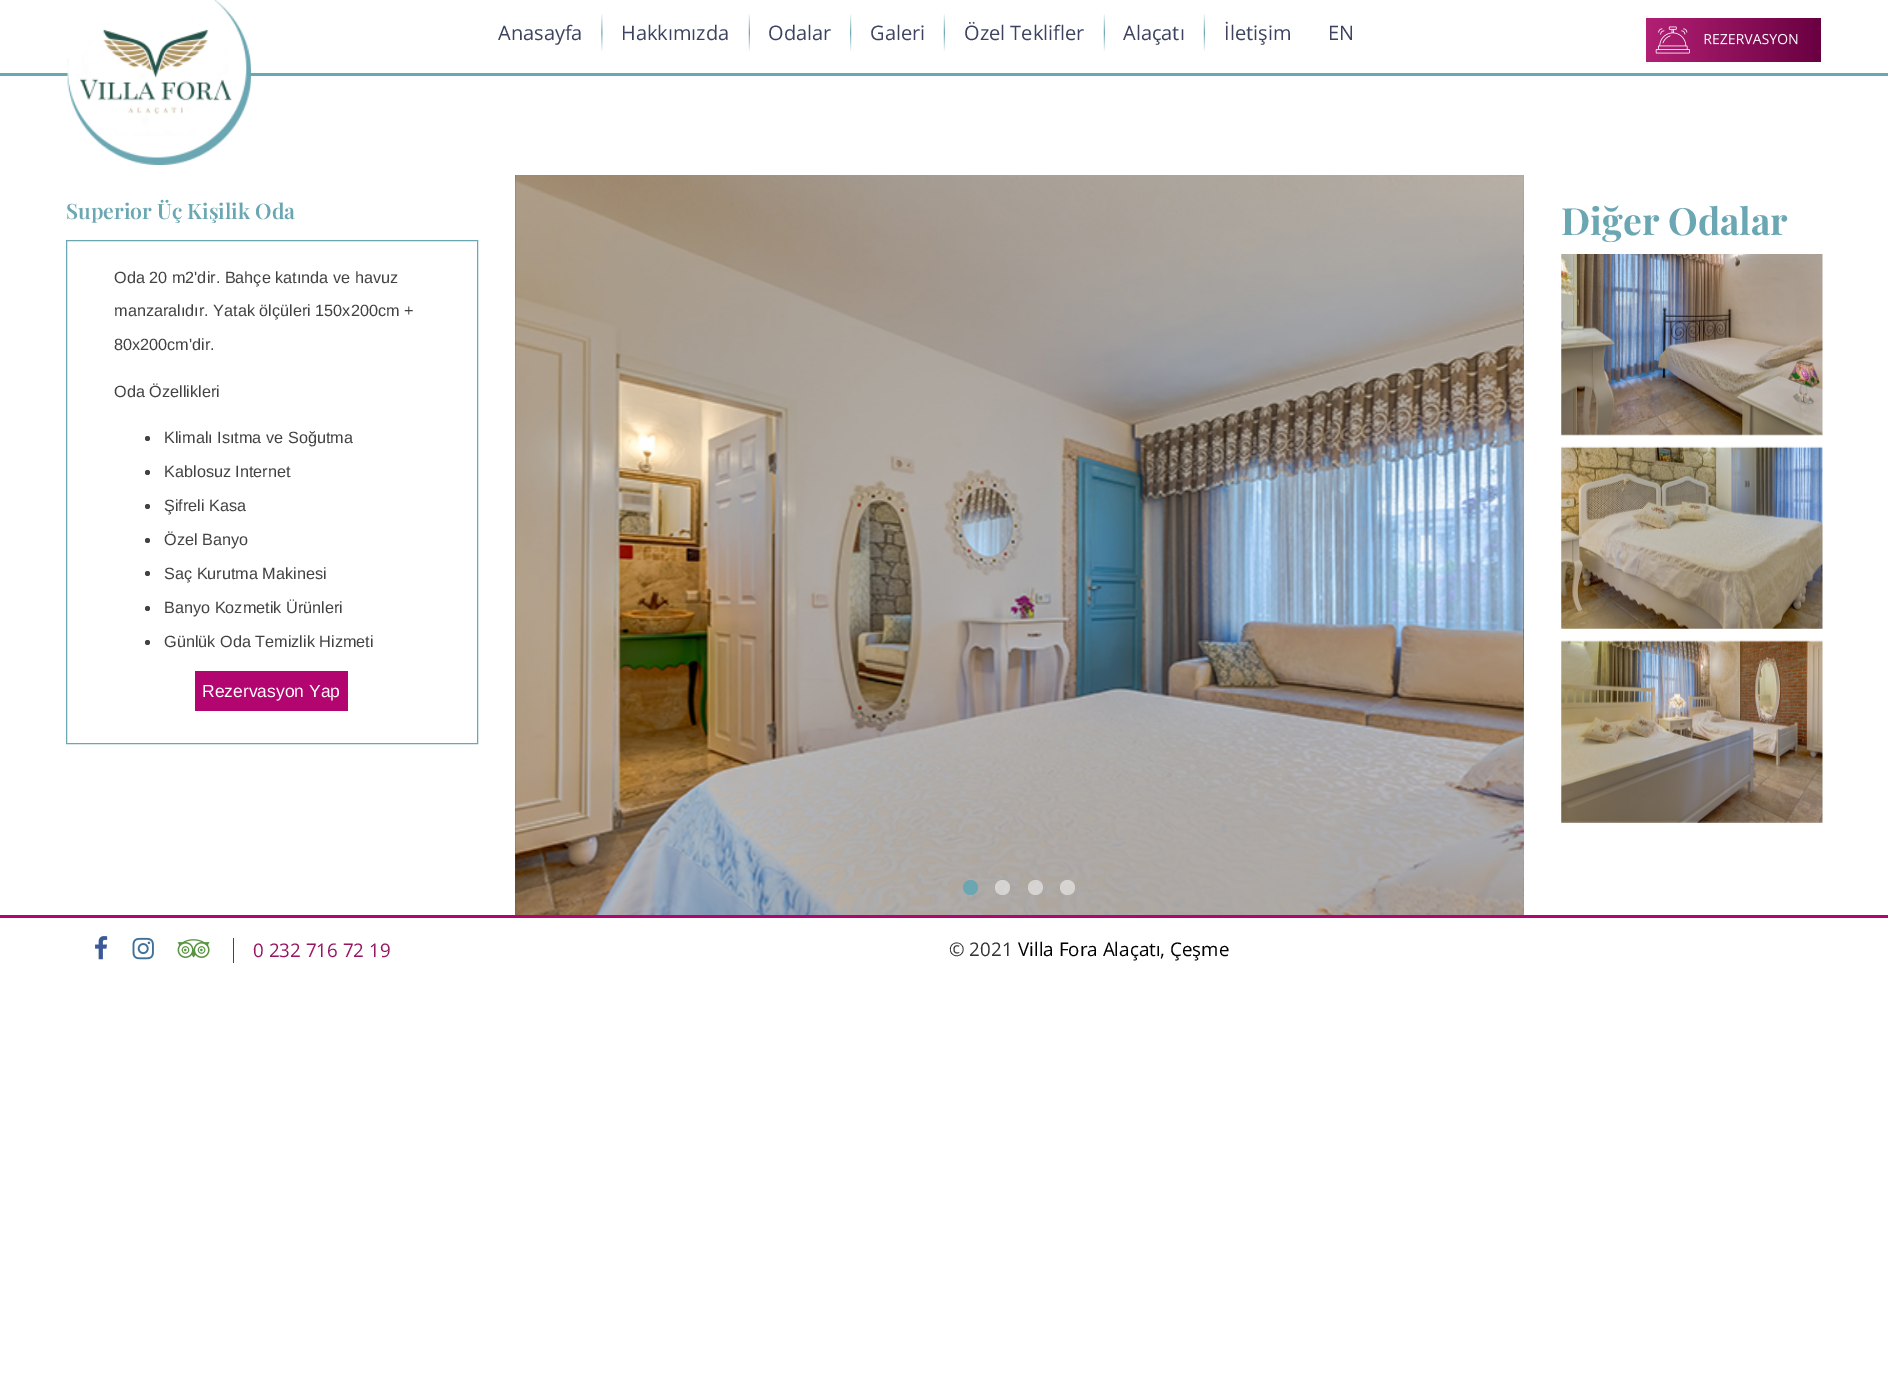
%!PS-Adobe-3.0
%%BoundingBox: 0 0 1888 1391
%%LanguageLevel: 3
%%Pages: 1
%%EndComments
%%BeginProlog
/setink { 3 { 255 div 3 1 roll } repeat setrgbcolor } def
/usefont { [ exch dup neg 0 0 3 -1 roll 0 0 ] selectfont } def
/drawtext { setink usefont moveto show } def
/fillbox { setink rectfill } def
/setalpha { dup .setfillconstantalpha .setstrokeconstantalpha } def
/disc { newpath 0 360 arc closepath } def
/drawimage { 5 dict begin { /h /w /y /x /name } { exch def } forall
  gsave x y translate w h scale
  w h 8 [w 0 0 h 0 0] name (r) file false 3 colorimage grestore end } def
%%EndProlog
%%BeginSetup
<< /PageSize [1888 1391] /PageUsesTransparency true >> setpagedevice
%%EndSetup
%%Page: 1 1
0 .pushpdf14devicefilter
0 1391 translate 1 -1 scale
4 setmiterlimit
0 0 1888 1391 255 255 255 fillbox
0 73 1888 3 106 167 179 fillbox
(assets/img1.rgb) 67 0 184 165 drawimage
(Anasayfa) 498 40 /OpenSans-Regular 20 60 66 95 drawtext
(assets/img2.rgb) 601 14 2 37 drawimage
(Hakkımızda) 621 40 /OpenSans-Regular 20 60 66 95 drawtext
(assets/img3.rgb) 748 14 2 37 drawimage
(Odalar) 768 40 /OpenSans-Regular 20 60 66 95 drawtext
(assets/img4.rgb) 850 14 2 37 drawimage
(Galeri) 870 40 /OpenSans-Regular 20 60 66 95 drawtext
(assets/img5.rgb) 943 14 2 37 drawimage
(Özel Teklifler) 964 40 /OpenSans-Regular 20 60 66 95 drawtext
(assets/img6.rgb) 1103 14 2 37 drawimage
(Alaçatı) 1123 40 /OpenSans-Regular 20 60 66 95 drawtext
(assets/img7.rgb) 1203 14 2 37 drawimage
(İletişim) 1224 40 /OpenSans-Regular 20 60 66 95 drawtext
(EN) 1328 40 /OpenSans-Regular 20 60 66 95 drawtext
(assets/img8.rgb) 1646 18 175 44 drawimage
(Superior Üç Kişilik Oda) 66 219 /PlayfairDisplay-SemiBold 21.25 106 167 179 drawtext
66.5 240.5 411 503 rectstroke
(Oda 20 m2'dir. Bahçe katında ve havuz) 114 283 /LiberationSans-Regular 16.25 66 66 66 drawtext
(manzaralıdır. Yatak ölçüleri 150x200cm +) 114 316 /LiberationSans-Regular 16.25 66 66 66 drawtext
(80x200cm'dir.) 114 350 /LiberationSans-Regular 16.25 66 66 66 drawtext
(Oda Özellikleri) 114 397 /LiberationSans-Regular 16.25 66 66 66 drawtext
147.5 438.5 2.5 disc fill
(Klimalı Isıtma ve Soğutma) 164 443 /LiberationSans-Regular 16.25 66 66 66 drawtext
147.5 472.5 2.5 disc fill
(Kablosuz Internet) 164 477 /LiberationSans-Regular 16.25 66 66 66 drawtext
147.5 506.5 2.5 disc fill
(Şifreli Kasa) 164 511 /LiberationSans-Regular 16.25 66 66 66 drawtext
147.5 540.5 2.5 disc fill
(Özel Banyo) 164 545 /LiberationSans-Regular 16.25 66 66 66 drawtext
147.5 573.5 2.5 disc fill
(Saç Kurutma Makinesi) 164 579 /LiberationSans-Regular 16.25 66 66 66 drawtext
147.5 608.5 2.5 disc fill
(Banyo Kozmetik Ürünleri) 164 613 /LiberationSans-Regular 16.25 66 66 66 drawtext
147.5 642.5 2.5 disc fill
(Günlük Oda Temizlik Hizmeti) 164 647 /LiberationSans-Regular 16.25 66 66 66 drawtext
195 671 153 40 179 5 112 fillbox
(Rezervasyon Yap) 202 697 /LiberationSans-Regular 17.5 255 255 255 drawtext
(assets/img9.rgb) 515 175 1009 740 drawimage
(assets/img10.rgb) 1523 175 1 740 drawimage
106 167 179 setink
970.5 887.5 7.5 disc fill
0.5 setalpha
255 255 255 setink
1002.5 887.5 7.5 disc fill
1035.5 887.5 7.5 disc fill
1067.5 887.5 7.5 disc fill
1 setalpha
(Diğer Odalar) 1561 235 /PlayfairDisplay-Bold 37.5 106 167 179 drawtext
(assets/img11.rgb) 1561 254 262 182 drawimage
(assets/img12.rgb) 1561 446 262 183 drawimage
(assets/img13.rgb) 1561 640 262 183 drawimage
0 915 1888 3 179 5 112 fillbox
(assets/img14.rgb) 95 936 13 24 drawimage
(assets/img15.rgb) 132 937 22 23 drawimage
(assets/img16.rgb) 177 939 33 19 drawimage
(0 232 716 72 19) 253 957 /OpenSans-Regular 18.75 151 20 97 drawtext
233 938 1 25 151 20 97 fillbox
(© 2021) 949 956 /OpenSans-Regular 18.75 51 51 51 drawtext
(Villa Fora Alaçatı, Çeşme) 1018 956 /OpenSans-Regular 18.75 0 0 0 drawtext
.poppdf14devicefilter showpage
%%EOF
